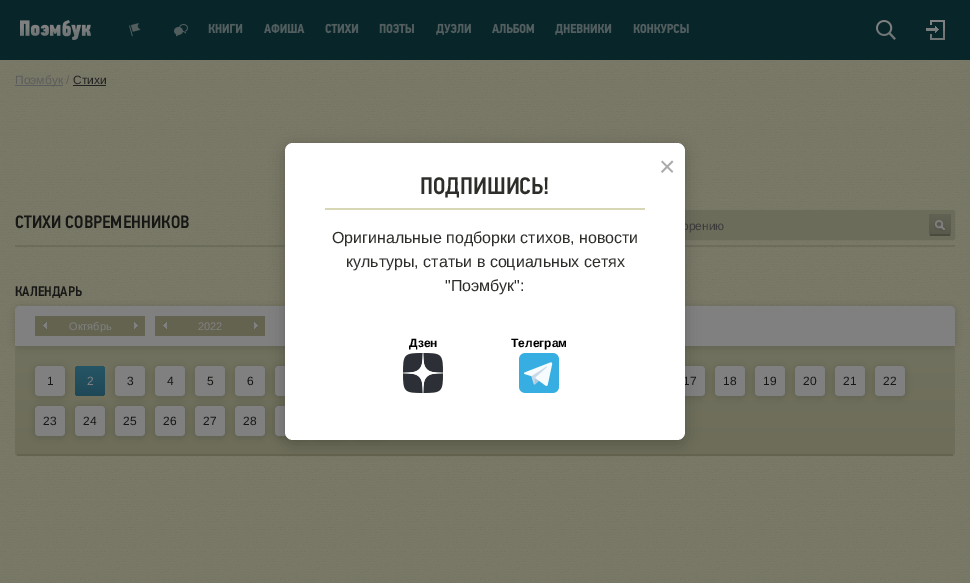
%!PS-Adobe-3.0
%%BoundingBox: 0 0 970 583
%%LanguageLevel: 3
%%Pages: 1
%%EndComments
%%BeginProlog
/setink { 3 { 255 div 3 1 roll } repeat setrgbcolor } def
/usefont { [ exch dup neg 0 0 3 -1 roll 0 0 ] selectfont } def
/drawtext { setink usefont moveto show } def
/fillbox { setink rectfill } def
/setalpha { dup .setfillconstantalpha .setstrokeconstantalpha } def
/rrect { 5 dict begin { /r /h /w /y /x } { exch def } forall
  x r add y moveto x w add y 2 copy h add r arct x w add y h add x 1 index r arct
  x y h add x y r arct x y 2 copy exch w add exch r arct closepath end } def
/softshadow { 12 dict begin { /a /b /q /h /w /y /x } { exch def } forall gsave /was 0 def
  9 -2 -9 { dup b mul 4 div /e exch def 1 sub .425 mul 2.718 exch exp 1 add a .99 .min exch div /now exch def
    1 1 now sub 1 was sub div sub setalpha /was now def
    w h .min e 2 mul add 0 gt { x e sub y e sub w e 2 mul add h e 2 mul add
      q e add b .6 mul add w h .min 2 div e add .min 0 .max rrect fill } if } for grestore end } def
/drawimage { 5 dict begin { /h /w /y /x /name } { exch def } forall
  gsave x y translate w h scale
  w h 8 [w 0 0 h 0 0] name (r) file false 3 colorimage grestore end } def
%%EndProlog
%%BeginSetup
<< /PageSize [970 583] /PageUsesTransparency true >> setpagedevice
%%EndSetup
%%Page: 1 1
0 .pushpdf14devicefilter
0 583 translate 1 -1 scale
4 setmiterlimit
0 0 970 583 255 255 255 fillbox
(assets/img1.rgb) 0 60 970 523 drawimage
0 0 970 60 8 38 41 fillbox
(assets/img2.rgb) 20 20 71 20 drawimage
(assets/img3.rgb) 129 23 12 14 drawimage
(assets/img4.rgb) 174 24 14 13 drawimage
(assets/img5.rgb) 208 23 35 10 drawimage
(assets/img6.rgb) 264 23 41 10 drawimage
(assets/img7.rgb) 325 23 34 11 drawimage
(assets/img8.rgb) 379 23 35 11 drawimage
(assets/img9.rgb) 436 23 35 12 drawimage
(assets/img10.rgb) 492 23 42 11 drawimage
(assets/img11.rgb) 555 23 57 12 drawimage
(assets/img12.rgb) 633 23 56 11 drawimage
(assets/img13.rgb) 876 20 20 20 drawimage
(assets/img14.rgb) 926 20 19 20 drawimage
15 85 48 1 92 92 92 fillbox
(Поэмбук /) 15 84 /LiberationSans-Regular 12 92 92 92 drawtext
(Стихи) 73 84 /LiberationSans-Regular 12 34 34 34 drawtext
73 85 33 1 34 34 34 fillbox
15 245 940 2 108 108 91 fillbox
(СТИХИ СОВРЕМЕННИКОВ) 15 228 /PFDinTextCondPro-Medium 18 23 23 21 drawtext
108 108 91 setink
576 211 378 28 1 rrect gsave fill grestore
2 setlinewidth
stroke
(орению) 682 230 /LiberationSans-Regular 12 59 59 59 drawtext
gsave 931 214 moveto 949 214 lineto 950 214 951 215 951 216 curveto 951 234 lineto 929 234 lineto 929 216 lineto 929 215 930 214 931 214 curveto closepath clip newpath
<< /ShadingType 2 /ColorSpace /DeviceRGB /Coords [940 214 940 234] /Extend [true true] /Function << /FunctionType 2 /Domain [0 1] /C0 [0.38 0.38 0.329] /C1 [0.349 0.349 0.298] /N 1 >> >> shfill grestore
gsave 929 234 moveto 951 234 lineto 951 235 950 236 949 236 curveto 931 236 lineto 930 236 929 235 929 234 curveto closepath clip newpath
<< /ShadingType 2 /ColorSpace /DeviceRGB /Coords [940 234 940 254] /Extend [true true] /Function << /FunctionType 2 /Domain [0 1] /C0 [0.38 0.38 0.329] /C1 [0.349 0.349 0.298] /N 1 >> >> shfill grestore
930 234 20 2 74 74 63 fillbox
(assets/img15.rgb) 934 220 12 12 drawimage
(КАЛЕНДАРЬ) 15 296 /PFDinTextCondPro-Medium 14 23 23 21 drawtext
gsave 15 346 moveto 955 346 lineto 955 454 lineto 15 454 lineto closepath clip newpath
<< /ShadingType 2 /ColorSpace /DeviceRGB /Coords [485 346 485 454] /Extend [true true] /Function << /FunctionType 2 /Domain [0 1] /C0 [0.443 0.443 0.373] /C1 [0.427 0.427 0.353] /N 1 >> >> shfill grestore
0 0 0 setink
15 307 940 40 5 4.5 0.15 softshadow
128 128 128 setink
20 306 moveto 950 306 lineto 953 306 955 308 955 311 curveto 955 346 lineto 15 346 lineto 15 311 lineto 15 308 17 306 20 306 curveto closepath fill
35 316 110 20 99 99 80 fillbox
(assets/img16.rgb) 43 322 4 7 drawimage
(Октябрь) 69 330 /LiberationSans-Regular 11 128 128 128 drawtext
(assets/img17.rgb) 134 322 4 7 drawimage
155 316 110 20 99 99 80 fillbox
(assets/img16.rgb) 163 322 4 7 drawimage
(2022) 198 330 /LiberationSans-Regular 11 128 128 128 drawtext
(assets/img17.rgb) 254 322 4 7 drawimage
gsave
15 346 moveto 955 346 lineto 955 452 lineto 955 454 953 456 951 456 curveto 19 456 lineto 17 456 15 454 15 452 curveto closepath clip newpath
gsave 15 454 moveto 955 454 lineto 955 456 lineto 15 456 lineto closepath clip newpath
<< /ShadingType 2 /ColorSpace /DeviceRGB /Coords [485 454 485 562] /Extend [true true] /Function << /FunctionType 2 /Domain [0 1] /C0 [0.443 0.443 0.373] /C1 [0.427 0.427 0.353] /N 1 >> >> shfill grestore
grestore
17 454 936 2 99 99 80 fillbox
0 0 0 setink
35 367 30 30 4 4.5 0.15 softshadow
128 128 128 setink
35 366 30 30 4 rrect fill
(1) 47 385 /LiberationSans-Regular 12 23 23 21 drawtext
gsave 75 366 30 30 4 rrect clip newpath
<< /ShadingType 2 /ColorSpace /DeviceRGB /Coords [90 366 90 396] /Extend [true true] /Function << /FunctionType 2 /Domain [0 1] /C0 [0.149 0.333 0.396] /C1 [0.122 0.282 0.341] /N 1 >> >> shfill grestore
(2) 87 385 /LiberationSans-Regular 12 128 128 128 drawtext
0 0 0 setink
115 367 30 30 4 4.5 0.15 softshadow
128 128 128 setink
115 366 30 30 4 rrect fill
(3) 127 385 /LiberationSans-Regular 12 23 23 21 drawtext
0 0 0 setink
155 367 30 30 4 4.5 0.15 softshadow
128 128 128 setink
155 366 30 30 4 rrect fill
(4) 167 385 /LiberationSans-Regular 12 23 23 21 drawtext
0 0 0 setink
195 367 30 30 4 4.5 0.15 softshadow
128 128 128 setink
195 366 30 30 4 rrect fill
(5) 207 385 /LiberationSans-Regular 12 23 23 21 drawtext
0 0 0 setink
235 367 30 30 4 4.5 0.15 softshadow
128 128 128 setink
235 366 30 30 4 rrect fill
(6) 247 385 /LiberationSans-Regular 12 23 23 21 drawtext
0 0 0 setink
275 367 30 30 4 4.5 0.15 softshadow
128 128 128 setink
275 366 30 30 4 rrect fill
0 0 0 setink
675 367 30 30 4 4.5 0.15 softshadow
128 128 128 setink
675 366 30 30 4 rrect fill
(17) 683 385 /LiberationSans-Regular 12 23 23 21 drawtext
0 0 0 setink
715 367 30 30 4 4.5 0.15 softshadow
128 128 128 setink
715 366 30 30 4 rrect fill
(18) 723 385 /LiberationSans-Regular 12 23 23 21 drawtext
0 0 0 setink
755 367 30 30 4 4.5 0.15 softshadow
128 128 128 setink
755 366 30 30 4 rrect fill
(19) 763 385 /LiberationSans-Regular 12 23 23 21 drawtext
0 0 0 setink
795 367 30 30 4 4.5 0.15 softshadow
128 128 128 setink
795 366 30 30 4 rrect fill
(20) 803 385 /LiberationSans-Regular 12 23 23 21 drawtext
0 0 0 setink
835 367 30 30 4 4.5 0.15 softshadow
128 128 128 setink
835 366 30 30 4 rrect fill
(21) 843 385 /LiberationSans-Regular 12 23 23 21 drawtext
0 0 0 setink
875 367 30 30 4 4.5 0.15 softshadow
128 128 128 setink
875 366 30 30 4 rrect fill
(22) 883 385 /LiberationSans-Regular 12 23 23 21 drawtext
0 0 0 setink
35 407 30 30 4 4.5 0.15 softshadow
128 128 128 setink
35 406 30 30 4 rrect fill
(23) 43 425 /LiberationSans-Regular 12 23 23 21 drawtext
0 0 0 setink
75 407 30 30 4 4.5 0.15 softshadow
128 128 128 setink
75 406 30 30 4 rrect fill
(24) 83 425 /LiberationSans-Regular 12 23 23 21 drawtext
0 0 0 setink
115 407 30 30 4 4.5 0.15 softshadow
128 128 128 setink
115 406 30 30 4 rrect fill
(25) 123 425 /LiberationSans-Regular 12 23 23 21 drawtext
0 0 0 setink
155 407 30 30 4 4.5 0.15 softshadow
128 128 128 setink
155 406 30 30 4 rrect fill
(26) 163 425 /LiberationSans-Regular 12 23 23 21 drawtext
0 0 0 setink
195 407 30 30 4 4.5 0.15 softshadow
128 128 128 setink
195 406 30 30 4 rrect fill
(27) 203 425 /LiberationSans-Regular 12 23 23 21 drawtext
0 0 0 setink
235 407 30 30 4 4.5 0.15 softshadow
128 128 128 setink
235 406 30 30 4 rrect fill
(28) 243 425 /LiberationSans-Regular 12 23 23 21 drawtext
0 0 0 setink
275 407 30 30 4 4.5 0.15 softshadow
128 128 128 setink
275 406 30 30 4 rrect fill
0 0 0 setink
315 407 30 30 4 4.5 0.15 softshadow
355 407 30 30 4 4.5 0.15 softshadow
285 147 400 297 8 7.5 0.2 softshadow
255 255 255 setink
285 143 400 297 8 rrect fill
(×) 659 176 /LiberationSans-Regular 28 170 170 170 drawtext
325 208 320 2 216 215 181 fillbox
(ПОДПИШИСЬ!) 420 194 /PFDinTextCondPro-Medium 24 45 45 41 drawtext
(Оригинальные подборки стихов, новости) 332 243 /LiberationSans-Regular 16 45 45 41 drawtext
(культуры, статьи в социальных сетях) 346 267 /LiberationSans-Regular 16 45 45 41 drawtext
("Поэмбук":) 445 291 /LiberationSans-Regular 16 45 45 41 drawtext
(Дзен) 409 347 /LiberationSans-Bold 12 0 0 0 drawtext
(assets/img18.rgb) 403 353 40 40 drawimage
(Телеграм) 511 347 /LiberationSans-Bold 12 0 0 0 drawtext
(assets/img19.rgb) 519 353 40 40 drawimage
.poppdf14devicefilter showpage
%%EOF
